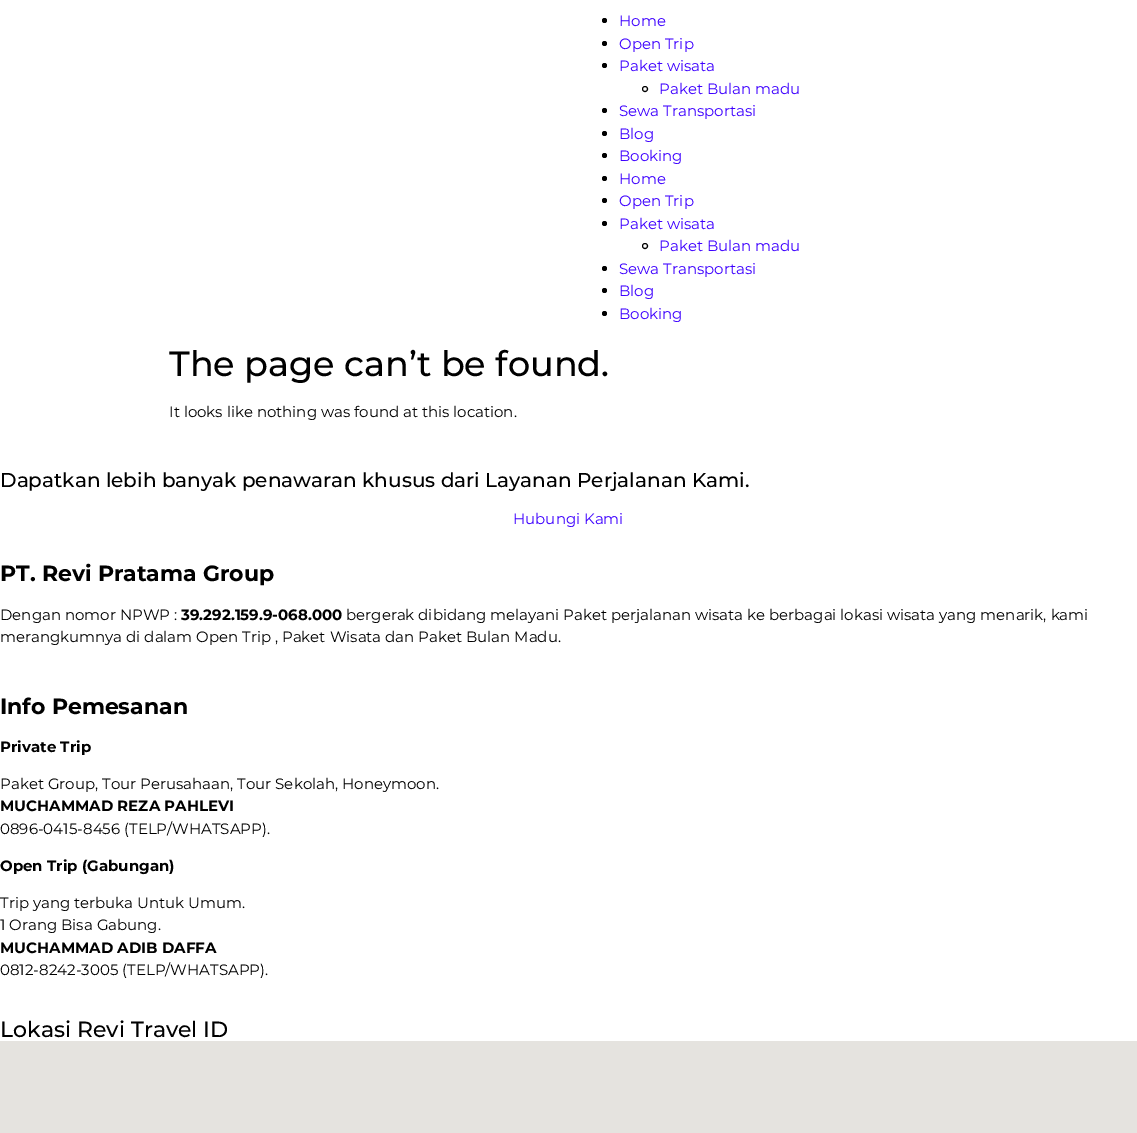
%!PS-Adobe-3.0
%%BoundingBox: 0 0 1137 1133
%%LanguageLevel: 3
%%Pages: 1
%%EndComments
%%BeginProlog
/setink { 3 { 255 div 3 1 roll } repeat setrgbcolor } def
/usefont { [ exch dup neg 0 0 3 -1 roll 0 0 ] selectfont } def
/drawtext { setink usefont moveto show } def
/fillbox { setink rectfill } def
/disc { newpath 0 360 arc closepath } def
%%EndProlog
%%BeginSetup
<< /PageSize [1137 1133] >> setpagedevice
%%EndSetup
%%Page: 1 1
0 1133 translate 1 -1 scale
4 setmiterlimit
0 0 1137 1133 255 255 255 fillbox
0 0 0 setink
604.5 20.5 2.5 disc fill
(Home) 619 26 /Montserrat-Regular 15 61 0 255 drawtext
0 0 0 setink
604.5 43.5 2.5 disc fill
(Open Trip) 619 49 /Montserrat-Regular 15 61 0 255 drawtext
0 0 0 setink
604.5 65.5 2.5 disc fill
(Paket wisata) 619 71 /Montserrat-Regular 15 61 0 255 drawtext
0 0 0 setink
645 89 2.5 disc stroke
(Paket Bulan madu) 659 94 /Montserrat-Regular 15 61 0 255 drawtext
0 0 0 setink
604.5 110.5 2.5 disc fill
(Sewa Transportasi) 619 116 /Montserrat-Regular 15 61 0 255 drawtext
0 0 0 setink
604.5 133.5 2.5 disc fill
(Blog) 619 139 /Montserrat-Regular 15 61 0 255 drawtext
0 0 0 setink
604.5 155.5 2.5 disc fill
(Booking) 619 161 /Montserrat-Regular 15 61 0 255 drawtext
0 0 0 setink
604.5 178.5 2.5 disc fill
(Home) 619 184 /Montserrat-Regular 15 61 0 255 drawtext
0 0 0 setink
604.5 200.5 2.5 disc fill
(Open Trip) 619 206 /Montserrat-Regular 15 61 0 255 drawtext
0 0 0 setink
604.5 223.5 2.5 disc fill
(Paket wisata) 619 229 /Montserrat-Regular 15 61 0 255 drawtext
0 0 0 setink
645 246 2.5 disc stroke
(Paket Bulan madu) 659 251 /Montserrat-Regular 15 61 0 255 drawtext
0 0 0 setink
604.5 268.5 2.5 disc fill
(Sewa Transportasi) 619 274 /Montserrat-Regular 15 61 0 255 drawtext
0 0 0 setink
604.5 290.5 2.5 disc fill
(Blog) 619 296 /Montserrat-Regular 15 61 0 255 drawtext
0 0 0 setink
604.5 313.5 2.5 disc fill
(Booking) 619 319 /Montserrat-Regular 15 61 0 255 drawtext
(The page can’t be found.) 169 376 /Montserrat-Medium 35 0 0 0 drawtext
(It looks like nothing was found at this location.) 169 417 /Montserrat-Regular 15 0 0 0 drawtext
(Dapatkan lebih banyak penawaran khusus dari Layanan Perjalanan Kami.) 0 487 /Montserrat-Medium 20 0 0 0 drawtext
(Hubungi Kami) 513 524 /Montserrat-Regular 15 61 0 255 drawtext
(PT. Revi Pratama Group) 0 581 /Montserrat-Bold 22 0 0 0 drawtext
(Dengan nomor NPWP :) 0 620 /Montserrat-Regular 15 0 0 0 drawtext
(39.292.159.9-068.000) 181 620 /Montserrat-Bold 15 0 0 0 drawtext
(bergerak dibidang melayani Paket perjalanan wisata ke berbagai lokasi wisata yang menarik, kami) 346 620 /Montserrat-Regular 15 0 0 0 drawtext
(merangkumnya di dalam Open Trip , Paket Wisata dan Paket Bulan Madu.) 0 642 /Montserrat-Regular 15 0 0 0 drawtext
(Info Pemesanan) 0 714 /Montserrat-Bold 22 0 0 0 drawtext
(Private Trip) 0 752 /Montserrat-Bold 15 0 0 0 drawtext
(Paket Group, Tour Perusahaan, Tour Sekolah, Honeymoon.) 0 789 /Montserrat-Regular 15 0 0 0 drawtext
(MUCHAMMAD REZA PAHLEVI) 0 811 /Montserrat-Bold 15 0 0 0 drawtext
(0896-0415-8456 \(TELP/WHATSAPP\).) 0 834 /Montserrat-Regular 15 0 0 0 drawtext
(Open Trip \(Gabungan\)) 0 871 /Montserrat-Bold 15 0 0 0 drawtext
(Trip yang terbuka Untuk Umum.) 0 908 /Montserrat-Regular 15 0 0 0 drawtext
(1 Orang Bisa Gabung.) 0 930 /Montserrat-Regular 15 0 0 0 drawtext
(MUCHAMMAD ADIB DAFFA) 0 953 /Montserrat-Bold 15 0 0 0 drawtext
(0812-8242-3005 \(TELP/WHATSAPP\).) 0 975 /Montserrat-Regular 15 0 0 0 drawtext
(Lokasi Revi Travel ID) 0 1037 /Montserrat-Medium 22 0 0 0 drawtext
0 1041 1137 92 229 227 223 fillbox
showpage
%%EOF
